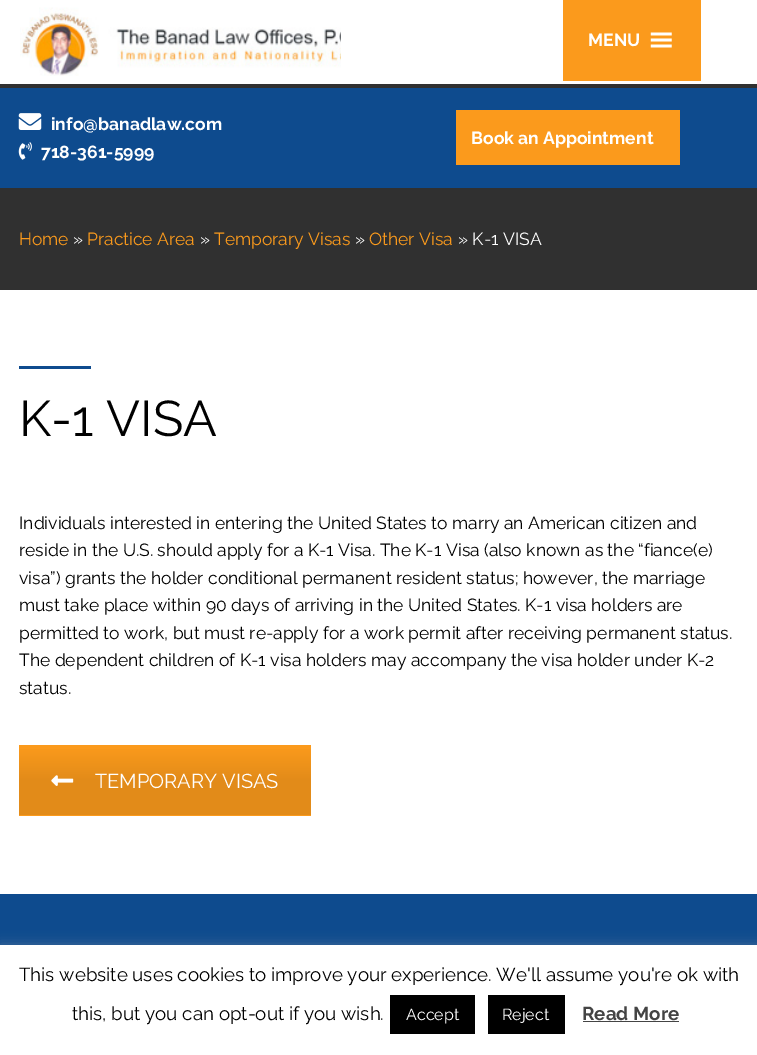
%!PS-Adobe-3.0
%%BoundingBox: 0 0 757 1055
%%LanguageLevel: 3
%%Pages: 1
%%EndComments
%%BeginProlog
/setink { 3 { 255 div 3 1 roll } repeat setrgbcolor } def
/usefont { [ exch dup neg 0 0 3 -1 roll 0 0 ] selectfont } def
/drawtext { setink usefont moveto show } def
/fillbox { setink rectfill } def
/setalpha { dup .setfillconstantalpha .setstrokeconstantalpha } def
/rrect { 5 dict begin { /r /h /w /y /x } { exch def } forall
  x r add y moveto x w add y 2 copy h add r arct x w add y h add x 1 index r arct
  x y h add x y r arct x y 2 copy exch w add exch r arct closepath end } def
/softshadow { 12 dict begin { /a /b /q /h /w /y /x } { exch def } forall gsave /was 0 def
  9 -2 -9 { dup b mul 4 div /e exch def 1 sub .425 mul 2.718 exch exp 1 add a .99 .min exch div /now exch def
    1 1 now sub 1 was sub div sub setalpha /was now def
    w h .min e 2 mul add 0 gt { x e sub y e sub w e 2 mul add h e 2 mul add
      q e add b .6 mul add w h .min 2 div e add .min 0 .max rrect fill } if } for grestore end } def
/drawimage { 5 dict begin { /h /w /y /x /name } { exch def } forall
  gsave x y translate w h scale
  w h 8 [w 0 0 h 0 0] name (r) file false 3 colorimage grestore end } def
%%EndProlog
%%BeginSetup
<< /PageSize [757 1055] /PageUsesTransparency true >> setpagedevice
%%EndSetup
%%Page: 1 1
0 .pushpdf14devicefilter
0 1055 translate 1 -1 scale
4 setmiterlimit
0 0 757 1055 48 48 48 fillbox
0 0 757 84 255 255 255 fillbox
(assets/img1.rgb) 20 7 321 69 drawimage
563 0 138 81 251 154 28 fillbox
(MENU) 588 46 /Raleway-Bold 17.5 255 255 255 drawtext
(assets/img2.rgb) 650 32 22 16 drawimage
0 88 757 100 14 75 142 fillbox
(assets/img3.rgb) 18 113 24 17 drawimage
(info@banadlaw.com) 51 130 /Raleway-Bold 17.5 255 255 255 drawtext
(assets/img4.rgb) 18 142 14 18 drawimage
(718-361-5999) 41 158 /Raleway-Bold 17.5 255 255 255 drawtext
456 110 224 55 251 154 28 fillbox
(Book an Appointment) 471 144 /Raleway-Bold 17.5 255 255 255 drawtext
(Home) 19 245 /Raleway-Regular 17.5 251 154 28 drawtext
(») 73 245 /Raleway-Regular 17.5 255 255 255 drawtext
(Practice Area) 87 245 /Raleway-Regular 17.5 251 154 28 drawtext
(») 200 245 /Raleway-Regular 17.5 255 255 255 drawtext
(Temporary Visas) 214 245 /Raleway-Regular 17.5 251 154 28 drawtext
(») 355 245 /Raleway-Regular 17.5 255 255 255 drawtext
(Other Visa) 369 245 /Raleway-Regular 17.5 251 154 28 drawtext
(» K-1 VISA) 458 245 /Raleway-Regular 17.5 255 255 255 drawtext
0 290 757 604 255 255 255 fillbox
19 366 72 3 14 75 142 fillbox
(K-1 VISA) 19 436 /Raleway-Regular 50 0 0 0 drawtext
(Individuals interested in entering the United States to marry an American citizen and) 19 529 /Raleway-Regular 17.5 0 0 0 drawtext
(reside in the U.S. should apply for a K-1 Visa. The K-1 Visa \(also known as the “fiance\(e\)) 19 556 /Raleway-Regular 17.5 0 0 0 drawtext
(visa”\) grants the holder conditional permanent resident status; however, the marriage) 19 584 /Raleway-Regular 17.5 0 0 0 drawtext
(must take place within 90 days of arriving in the United States. K-1 visa holders are) 19 611 /Raleway-Regular 17.5 0 0 0 drawtext
(permitted to work, but must re-apply for a work permit after receiving permanent status.) 19 639 /Raleway-Regular 17.5 0 0 0 drawtext
(The dependent children of K-1 visa holders may accompany the visa holder under K-2) 19 666 /Raleway-Regular 17.5 0 0 0 drawtext
(status.) 19 694 /Raleway-Regular 17.5 0 0 0 drawtext
19 745 292 71 251 154 28 fillbox
gsave 19 749 moveto 311 749 lineto 311 815 lineto 19 815 lineto closepath clip newpath
<< /ShadingType 2 /ColorSpace /DeviceRGB /Coords [310 746 310 815] /Extend [true true] /Function << /FunctionType 3 /Domain [0 1] /Functions [<< /FunctionType 2 /Domain [0 1] /C0 [0.984 0.604 0.11] /C1 [0.886 0.545 0.098] /N 1 >> << /FunctionType 2 /Domain [0 1] /C0 [0.886 0.545 0.098] /C1 [0.886 0.545 0.098] /N 1 >>] /Bounds [0.5] /Encode [0 1 0 1] >> >> shfill grestore
(assets/img5.rgb) 51 775 23 11 drawimage
(TEMPORARY VISAS) 95 788 /Raleway-Regular 20 255 255 255 drawtext
0 894 757 51 14 75 142 fillbox
172 171 171 setink
0 944 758 110 0 6 0.3 softshadow
0 945 757 110 255 255 255 fillbox
(This website uses cookies to improve your experience. We'll assume you're ok with) 19 981 /Raleway-Regular 18.75 0 0 0 drawtext
(this, but you can opt-out if you wish.) 72 1020 /Raleway-Regular 18.75 0 0 0 drawtext
390 995 85 39 0 0 0 fillbox
(Accept) 406 1020 /Raleway-Regular 16 255 255 255 drawtext
488 995 77 39 0 0 0 fillbox
(Reject) 502 1020 /Raleway-Regular 16 255 255 255 drawtext
(Read More) 582 1020 /Raleway-Bold 18.75 68 68 68 drawtext
583 1021 96 1 68 68 68 fillbox
.poppdf14devicefilter showpage
%%EOF
